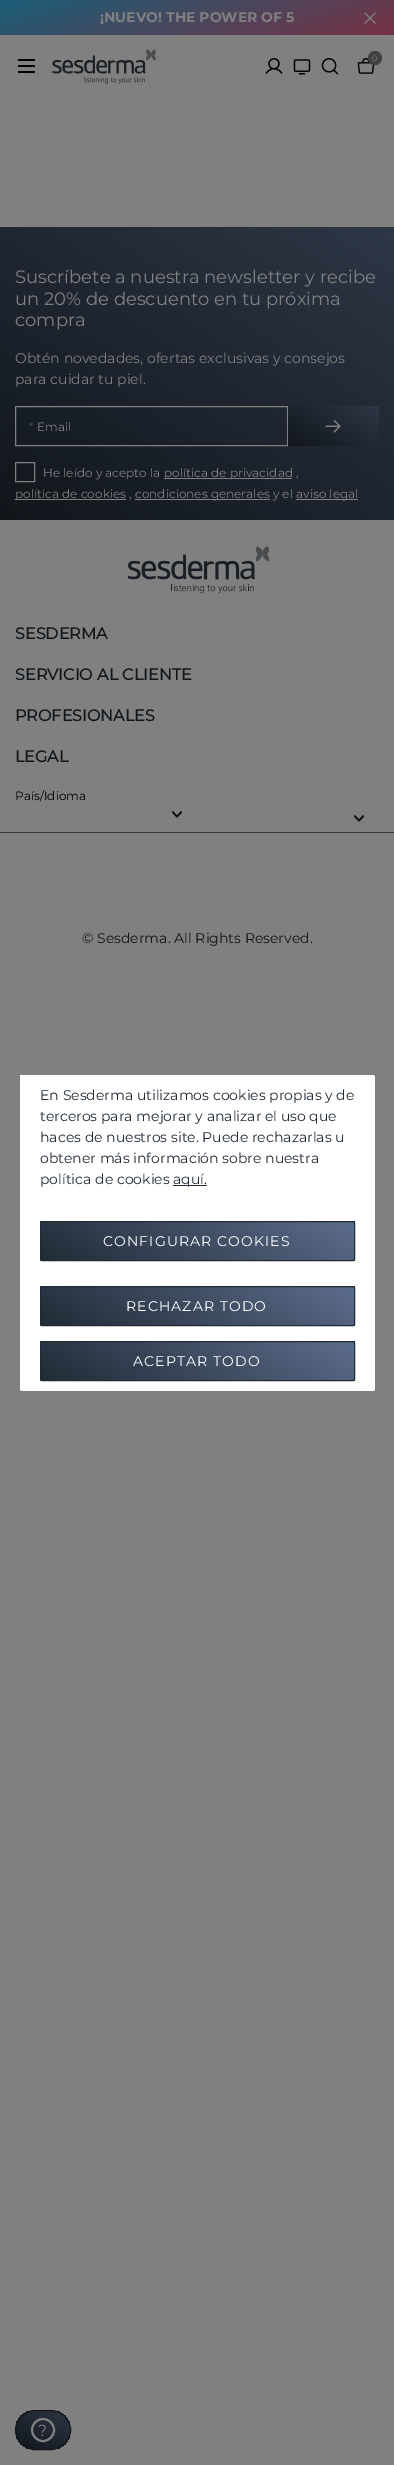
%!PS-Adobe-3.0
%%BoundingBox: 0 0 394 2465
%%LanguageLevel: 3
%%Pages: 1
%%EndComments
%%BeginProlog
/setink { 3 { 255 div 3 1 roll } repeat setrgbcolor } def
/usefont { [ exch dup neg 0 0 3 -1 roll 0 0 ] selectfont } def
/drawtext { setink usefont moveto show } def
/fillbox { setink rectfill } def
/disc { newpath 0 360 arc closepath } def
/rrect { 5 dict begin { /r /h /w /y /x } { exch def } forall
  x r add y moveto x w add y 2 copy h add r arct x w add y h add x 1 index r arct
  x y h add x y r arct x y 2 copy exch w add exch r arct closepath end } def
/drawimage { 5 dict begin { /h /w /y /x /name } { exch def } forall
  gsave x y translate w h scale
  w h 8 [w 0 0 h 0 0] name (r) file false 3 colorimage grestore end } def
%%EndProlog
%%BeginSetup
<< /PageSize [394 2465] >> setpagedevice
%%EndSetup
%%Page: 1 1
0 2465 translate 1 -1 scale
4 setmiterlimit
0 0 394 2465 128 128 128 fillbox
gsave 0 0 moveto 394 0 lineto 394 35 lineto 0 35 lineto closepath clip newpath
<< /ShadingType 2 /ColorSpace /DeviceRGB /Coords [223 94 171 -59] /Extend [true true] /Function << /FunctionType 2 /Domain [0 1] /C0 [0.467 0.192 0.267] /C1 [0.102 0.369 0.471] /N 1 >> >> shfill grestore
(¡NUEVO! THE POWER OF 5) 100 22 /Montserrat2-Bold 14 128 128 128 drawtext
(assets/img1.rgb) 364 12 12 12 drawimage
0 0 0 setink
18 59 17 2 1 rrect fill
18 65 17 2 1 rrect fill
18 71 17 2 1 rrect fill
(assets/img2.rgb) 52 49 104 35 drawimage
(assets/img3.rgb) 265 58 18 16 drawimage
(assets/img4.rgb) 293 59 18 16 drawimage
(assets/img5.rgb) 321 58 18 17 drawimage
(assets/img6.rgb) 357 58 18 16 drawimage
64 64 64 setink
375 58 7 disc fill
(0) 372 61 /Montserrat-Regular 8 128 128 128 drawtext
gsave 0 227 moveto 394 227 lineto 394 520 lineto 0 520 lineto closepath clip newpath
<< /ShadingType 2 /ColorSpace /DeviceRGB /Coords [72 567 322 180] /Extend [true true] /Function << /FunctionType 2 /Domain [0 1] /C0 [0.067 0.086 0.106] /C1 [0.18 0.216 0.275] /N 1 >> >> shfill grestore
(Suscríbete a nuestra newsletter y recibe) 15 283 /Montserrat-Regular 18 128 128 128 drawtext
(un 20% de descuento en tu próxima) 15 305 /Montserrat-Regular 18 128 128 128 drawtext
(compra) 15 326 /Montserrat-Regular 18 128 128 128 drawtext
(Obtén novedades, ofertas exclusivas y consejos) 15 363 /Montserrat-Regular 14 128 128 128 drawtext
(para cuidar tu piel.) 15 384 /Montserrat-Regular 14 128 128 128 drawtext
15.5 406.5 272 39 rectstroke
gsave 288 406 moveto 379 406 lineto 379 446 lineto 288 446 lineto closepath clip newpath
<< /ShadingType 2 /ColorSpace /DeviceRGB /Coords [311 461 356 391] /Extend [true true] /Function << /FunctionType 2 /Domain [0 1] /C0 [0.067 0.086 0.106] /C1 [0.18 0.216 0.275] /N 1 >> >> shfill grestore
(assets/img7.rgb) 325 419 16 14 drawimage
(*) 29 431 /Montserrat-Regular 12 78 78 80 drawtext
(Email) 37 431 /Montserrat-Regular 12 128 128 128 drawtext
15.5 462.5 19 19 rectstroke
(He leído y acepto la) 43 477 /Montserrat-Regular 12 128 128 128 drawtext
164 478 128 1 128 128 128 fillbox
(política de privacidad ,) 164 477 /Montserrat-Regular 12 128 128 128 drawtext
15 499 111 1 128 128 128 fillbox
(política de cookies ,) 15 498 /Montserrat-Regular 12 128 128 128 drawtext
135 499 135 1 128 128 128 fillbox
(condiciones generales y el) 135 498 /Montserrat-Regular 12 128 128 128 drawtext
296 499 62 1 128 128 128 fillbox
(aviso legal) 296 498 /Montserrat-Regular 12 128 128 128 drawtext
(assets/img8.rgb) 127 546 143 48 drawimage
(SESDERMA) 15 639 /Montserrat-Bold 16 17 22 27 drawtext
(SERVICIO AL CLIENTE) 15 680 /Montserrat-Bold 16 17 22 27 drawtext
(PROFESIONALES) 15 721 /Montserrat-Bold 16 17 22 27 drawtext
(LEGAL) 15 762 /Montserrat-Bold 16 17 22 27 drawtext
(País/Idioma) 15 800 /Montserrat-Regular 12 0 0 0 drawtext
(assets/img9.rgb) 172 811 10 7 drawimage
(assets/img9.rgb) 354 815 10 7 drawimage
0 832 394 1 50 58 65 fillbox
(© Sesderma. All Rights Reserved.) 82 943 /Montserrat-Regular 14 17 22 27 drawtext
255 255 255 setink
20 1075 moveto 373 1075 lineto 374 1075 375 1076 375 1077 curveto 375 1389 lineto 375 1390 374 1391 373 1391 curveto 22 1391 lineto 21 1391 20 1390 20 1389 curveto closepath fill
(En Sesderma utilizamos cookies propias y de) 40 1100 /Montserrat-Regular 14 33 43 54 drawtext
(terceros para mejorar y analizar el uso que) 40 1121 /Montserrat-Regular 14 33 43 54 drawtext
(haces de nuestros site. Puede rechazarlas u) 40 1142 /Montserrat-Regular 14 33 43 54 drawtext
(obtener más información sobre nuestra) 40 1163 /Montserrat-Regular 14 33 43 54 drawtext
(política de cookies) 40 1184 /Montserrat-Regular 14 33 43 54 drawtext
173 1185 34 1 33 43 54 fillbox
(aquí.) 173 1184 /Montserrat-Regular 14 33 43 54 drawtext
gsave 40 1221 moveto 41 1221 lineto 41 1222 lineto 40 1222 lineto closepath clip newpath
<< /ShadingType 2 /ColorSpace /DeviceRGB /Coords [-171 1288 -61 1118] /Extend [true true] /Function << /FunctionType 2 /Domain [0 1] /C0 [0.129 0.169 0.212] /C1 [0.361 0.427 0.549] /N 1 >> >> shfill grestore
gsave 354 1221 moveto 355 1221 lineto 355 1222 lineto 354 1222 lineto closepath clip newpath
<< /ShadingType 2 /ColorSpace /DeviceRGB /Coords [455 1288 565 1118] /Extend [true true] /Function << /FunctionType 2 /Domain [0 1] /C0 [0.129 0.169 0.212] /C1 [0.361 0.427 0.549] /N 1 >> >> shfill grestore
gsave 41 1222 moveto 354 1222 lineto 354 1260 lineto 41 1260 lineto closepath clip newpath
<< /ShadingType 2 /ColorSpace /DeviceRGB /Coords [142 1326 252 1156] /Extend [true true] /Function << /FunctionType 2 /Domain [0 1] /C0 [0.129 0.169 0.212] /C1 [0.361 0.427 0.549] /N 1 >> >> shfill grestore
gsave 40 1260 moveto 41 1260 lineto 41 1261 lineto 40 1261 lineto closepath clip newpath
<< /ShadingType 2 /ColorSpace /DeviceRGB /Coords [-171 1364 -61 1194] /Extend [true true] /Function << /FunctionType 2 /Domain [0 1] /C0 [0.129 0.169 0.212] /C1 [0.361 0.427 0.549] /N 1 >> >> shfill grestore
gsave 354 1260 moveto 355 1260 lineto 355 1261 lineto 354 1261 lineto closepath clip newpath
<< /ShadingType 2 /ColorSpace /DeviceRGB /Coords [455 1364 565 1194] /Extend [true true] /Function << /FunctionType 2 /Domain [0 1] /C0 [0.129 0.169 0.212] /C1 [0.361 0.427 0.549] /N 1 >> >> shfill grestore
40.5 1221.5 314 39 1.5 rrect stroke
255 255 255 setink
103 1246 moveto 1.1 0 (CONFIGURAR COOKIES) ashow
gsave 40 1286 moveto 41 1286 lineto 41 1287 lineto 40 1287 lineto closepath clip newpath
<< /ShadingType 2 /ColorSpace /DeviceRGB /Coords [-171 1353 -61 1183] /Extend [true true] /Function << /FunctionType 2 /Domain [0 1] /C0 [0.129 0.169 0.212] /C1 [0.361 0.427 0.549] /N 1 >> >> shfill grestore
gsave 354 1286 moveto 355 1286 lineto 355 1287 lineto 354 1287 lineto closepath clip newpath
<< /ShadingType 2 /ColorSpace /DeviceRGB /Coords [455 1353 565 1183] /Extend [true true] /Function << /FunctionType 2 /Domain [0 1] /C0 [0.129 0.169 0.212] /C1 [0.361 0.427 0.549] /N 1 >> >> shfill grestore
gsave 41 1287 moveto 354 1287 lineto 354 1325 lineto 41 1325 lineto closepath clip newpath
<< /ShadingType 2 /ColorSpace /DeviceRGB /Coords [142 1391 252 1221] /Extend [true true] /Function << /FunctionType 2 /Domain [0 1] /C0 [0.129 0.169 0.212] /C1 [0.361 0.427 0.549] /N 1 >> >> shfill grestore
gsave 40 1325 moveto 41 1325 lineto 41 1326 lineto 40 1326 lineto closepath clip newpath
<< /ShadingType 2 /ColorSpace /DeviceRGB /Coords [-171 1429 -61 1259] /Extend [true true] /Function << /FunctionType 2 /Domain [0 1] /C0 [0.129 0.169 0.212] /C1 [0.361 0.427 0.549] /N 1 >> >> shfill grestore
gsave 354 1325 moveto 355 1325 lineto 355 1326 lineto 354 1326 lineto closepath clip newpath
<< /ShadingType 2 /ColorSpace /DeviceRGB /Coords [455 1429 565 1259] /Extend [true true] /Function << /FunctionType 2 /Domain [0 1] /C0 [0.129 0.169 0.212] /C1 [0.361 0.427 0.549] /N 1 >> >> shfill grestore
33 43 54 setink
40.5 1286.5 314 39 1.5 rrect stroke
255 255 255 setink
126 1311 moveto 1.1 0 (RECHAZAR TODO) ashow
gsave 40 1341 moveto 41 1341 lineto 41 1342 lineto 40 1342 lineto closepath clip newpath
<< /ShadingType 2 /ColorSpace /DeviceRGB /Coords [-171 1408 -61 1238] /Extend [true true] /Function << /FunctionType 2 /Domain [0 1] /C0 [0.129 0.169 0.212] /C1 [0.361 0.427 0.549] /N 1 >> >> shfill grestore
gsave 354 1341 moveto 355 1341 lineto 355 1342 lineto 354 1342 lineto closepath clip newpath
<< /ShadingType 2 /ColorSpace /DeviceRGB /Coords [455 1408 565 1238] /Extend [true true] /Function << /FunctionType 2 /Domain [0 1] /C0 [0.129 0.169 0.212] /C1 [0.361 0.427 0.549] /N 1 >> >> shfill grestore
gsave 41 1342 moveto 354 1342 lineto 354 1380 lineto 41 1380 lineto closepath clip newpath
<< /ShadingType 2 /ColorSpace /DeviceRGB /Coords [142 1446 252 1276] /Extend [true true] /Function << /FunctionType 2 /Domain [0 1] /C0 [0.129 0.169 0.212] /C1 [0.361 0.427 0.549] /N 1 >> >> shfill grestore
gsave 40 1380 moveto 41 1380 lineto 41 1381 lineto 40 1381 lineto closepath clip newpath
<< /ShadingType 2 /ColorSpace /DeviceRGB /Coords [-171 1484 -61 1314] /Extend [true true] /Function << /FunctionType 2 /Domain [0 1] /C0 [0.129 0.169 0.212] /C1 [0.361 0.427 0.549] /N 1 >> >> shfill grestore
gsave 354 1380 moveto 355 1380 lineto 355 1381 lineto 354 1381 lineto closepath clip newpath
<< /ShadingType 2 /ColorSpace /DeviceRGB /Coords [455 1484 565 1314] /Extend [true true] /Function << /FunctionType 2 /Domain [0 1] /C0 [0.129 0.169 0.212] /C1 [0.361 0.427 0.549] /N 1 >> >> shfill grestore
33 43 54 setink
40.5 1341.5 314 39 1.5 rrect stroke
255 255 255 setink
133 1366 moveto 1.1 0 (ACEPTAR TODO) ashow
gsave
15 2410 56 40 20 rrect clip newpath
gsave 16 2411 moveto 70 2411 lineto 70 2449 lineto 16 2449 lineto closepath clip newpath
<< /ShadingType 2 /ColorSpace /DeviceRGB /Coords [26 2456 60 2404] /Extend [true true] /Function << /FunctionType 2 /Domain [0 1] /C0 [0.067 0.086 0.106] /C1 [0.18 0.216 0.275] /N 1 >> >> shfill grestore
grestore
17 22 27 setink
15.5 2410.5 55 39 19.5 rrect stroke
128 128 128 setink
2 setlinewidth
43 2430 11 disc stroke
/Montserrat-Regular 16 usefont
38 2436 moveto 1.1 0 (?) ashow
showpage
%%EOF
